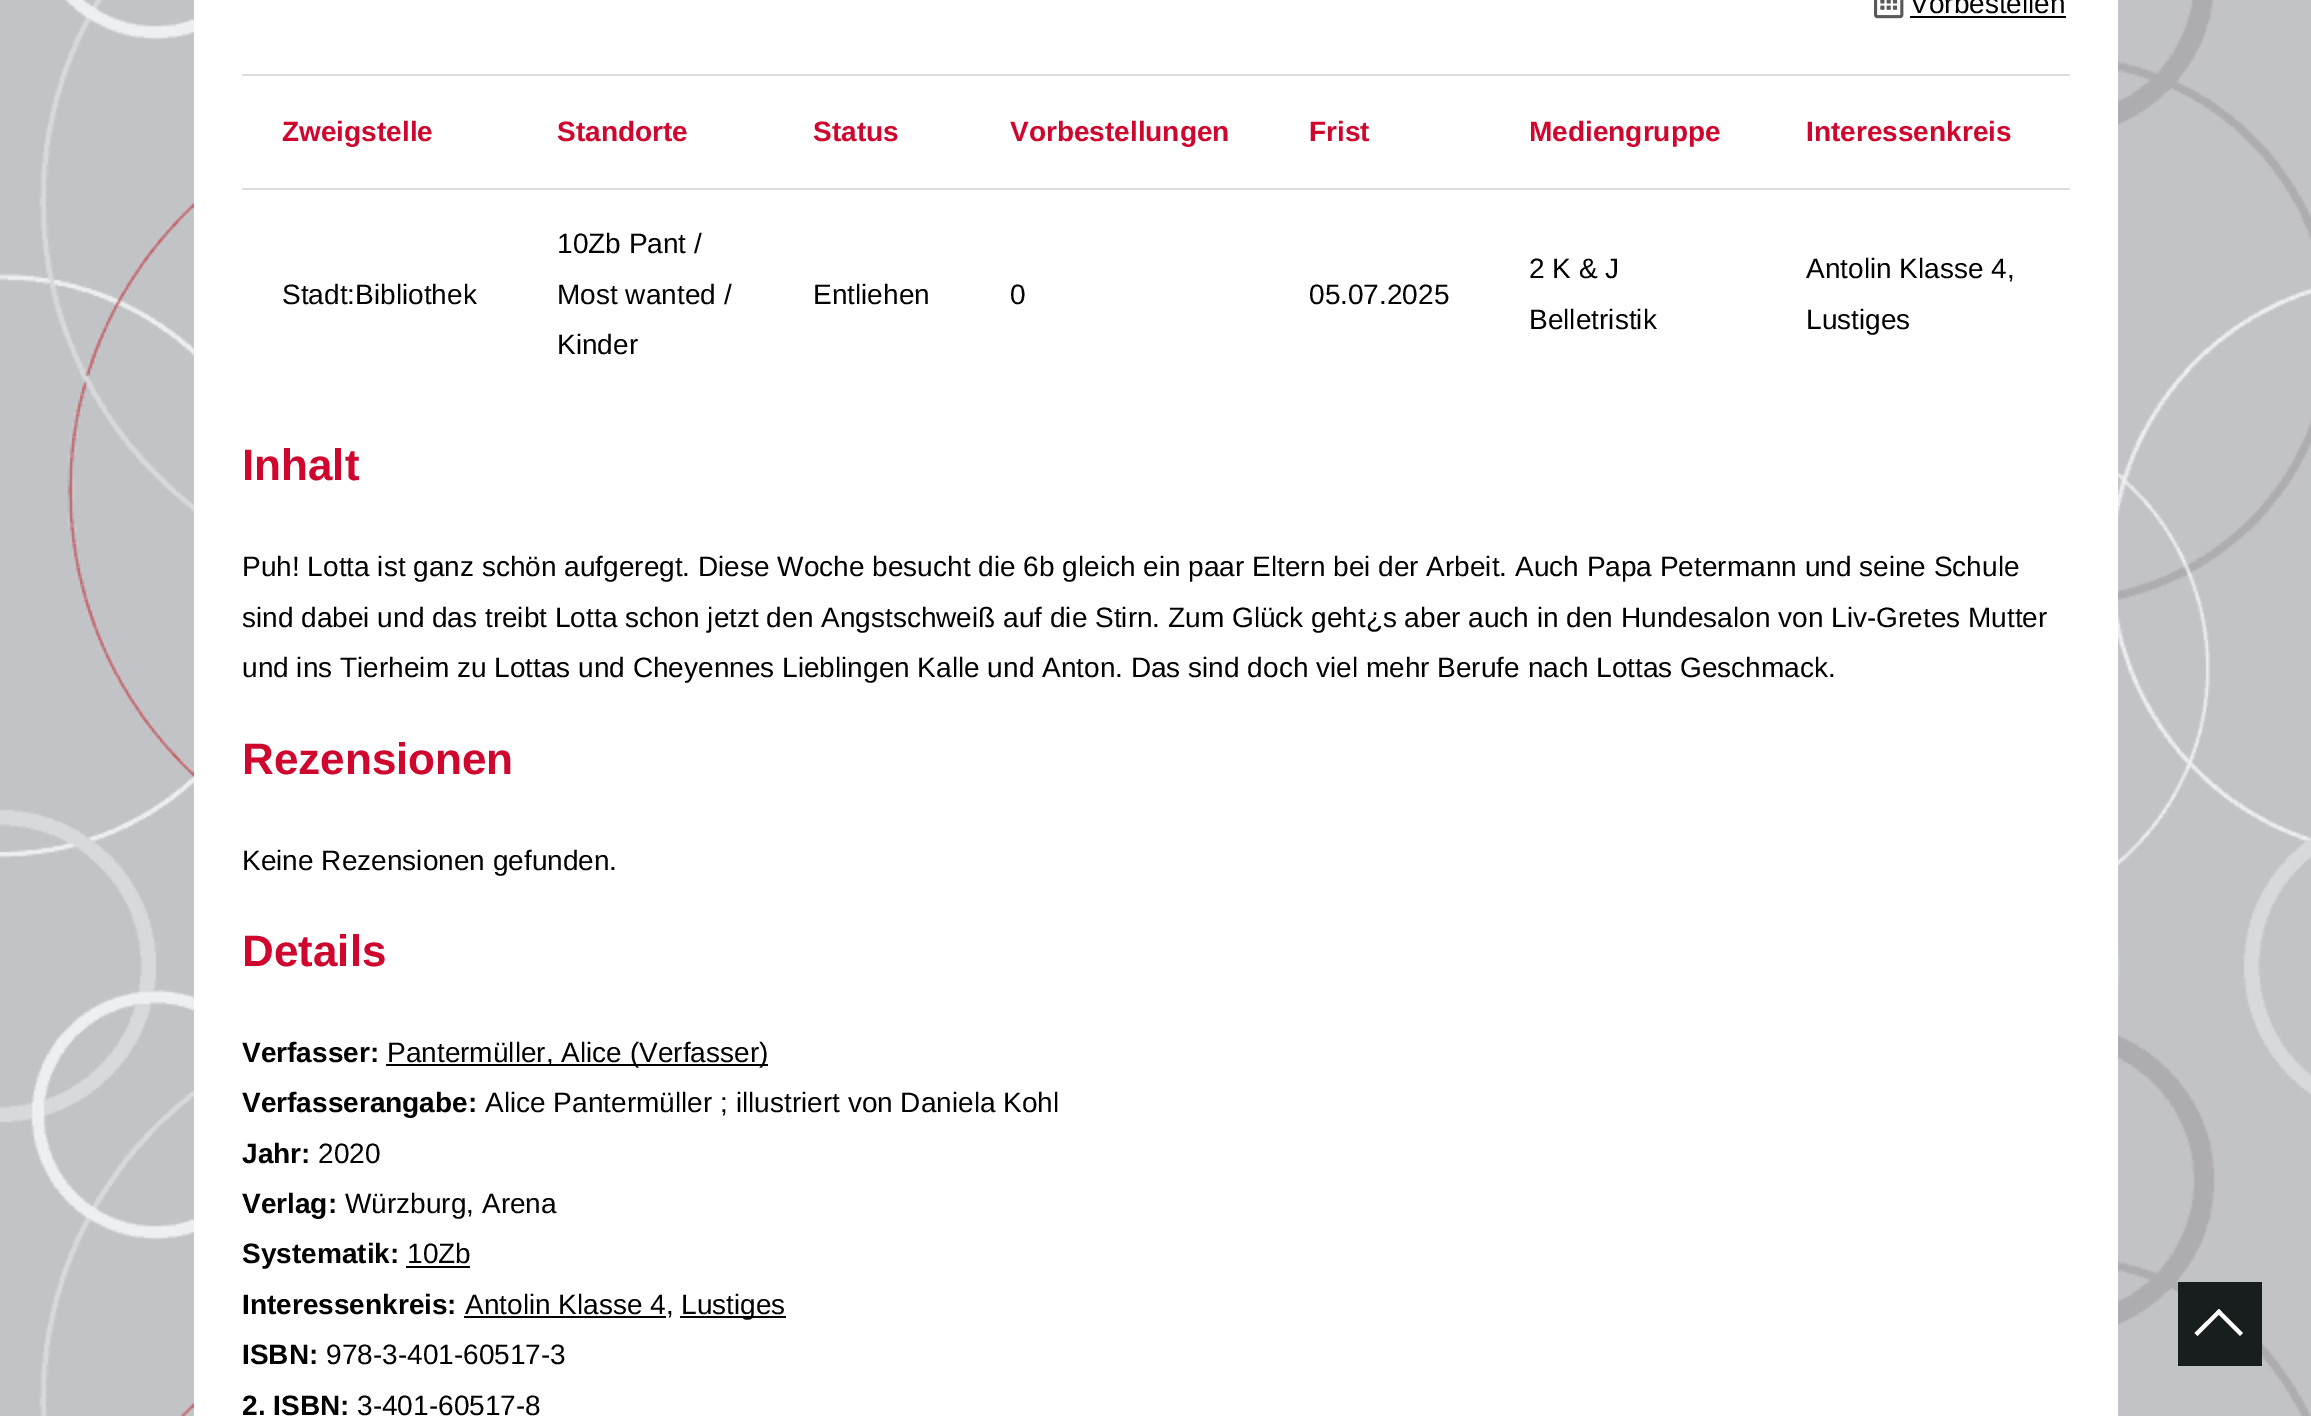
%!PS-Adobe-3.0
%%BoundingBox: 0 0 2311 1416
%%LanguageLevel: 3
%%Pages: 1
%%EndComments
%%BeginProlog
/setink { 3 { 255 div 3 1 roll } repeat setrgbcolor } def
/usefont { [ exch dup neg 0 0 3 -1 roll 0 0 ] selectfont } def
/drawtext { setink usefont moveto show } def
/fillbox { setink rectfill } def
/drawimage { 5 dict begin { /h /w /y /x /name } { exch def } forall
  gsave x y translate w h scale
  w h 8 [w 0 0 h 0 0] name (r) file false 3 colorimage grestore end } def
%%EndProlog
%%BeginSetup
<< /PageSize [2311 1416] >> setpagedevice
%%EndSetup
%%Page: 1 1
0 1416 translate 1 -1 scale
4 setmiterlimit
0 0 2311 1416 255 255 255 fillbox
(assets/img1.rgb) 0 0 2311 1416 drawimage
194 0 1924 1416 255 255 255 fillbox
(assets/img2.rgb) 1874 0 30 19 drawimage
(Vorbestellen) 1910 13 /LiberationSans-Regular 28 0 0 0 drawtext
1910 16 156 2 0 0 0 fillbox
242 74 1828 2 220 221 222 fillbox
242 188 1828 2 220 221 222 fillbox
(Zweigstelle) 282 141 /LiberationSans-Bold 28 207 7 47 drawtext
(Standorte) 557 141 /LiberationSans-Bold 28 207 7 47 drawtext
(Status) 813 141 /LiberationSans-Bold 28 207 7 47 drawtext
(Vorbestellungen) 1010 141 /LiberationSans-Bold 28 207 7 47 drawtext
(Frist) 1309 141 /LiberationSans-Bold 28 207 7 47 drawtext
(Mediengruppe) 1529 141 /LiberationSans-Bold 28 207 7 47 drawtext
(Interessenkreis) 1806 141 /LiberationSans-Bold 28 207 7 47 drawtext
(Stadt:Bibliothek) 282 304 /LiberationSans-Regular 28 0 0 0 drawtext
(10Zb Pant /) 557 253 /LiberationSans-Regular 28 0 0 0 drawtext
(Most wanted /) 557 304 /LiberationSans-Regular 28 0 0 0 drawtext
(Kinder) 557 354 /LiberationSans-Regular 28 0 0 0 drawtext
(Entliehen) 813 304 /LiberationSans-Regular 28 0 0 0 drawtext
(0) 1010 304 /LiberationSans-Regular 28 0 0 0 drawtext
(05.07.2025) 1309 304 /LiberationSans-Regular 28 0 0 0 drawtext
(2 K & J) 1529 278 /LiberationSans-Regular 28 0 0 0 drawtext
(Belletristik) 1529 329 /LiberationSans-Regular 28 0 0 0 drawtext
(Antolin Klasse 4,) 1806 278 /LiberationSans-Regular 28 0 0 0 drawtext
(Lustiges) 1806 329 /LiberationSans-Regular 28 0 0 0 drawtext
(Inhalt) 242 480 /LiberationSans-Bold 44 207 7 47 drawtext
(Puh! Lotta ist ganz schön aufgeregt. Diese Woche besucht die 6b gleich ein paar Eltern bei der Arbeit. Auch Papa Petermann und seine Schule) 242 576 /LiberationSans-Regular 28 0 0 0 drawtext
(sind dabei und das treibt Lotta schon jetzt den Angstschweiß auf die Stirn. Zum Glück geht¿s aber auch in den Hundesalon von Liv-Gretes Mutter) 242 627 /LiberationSans-Regular 28 0 0 0 drawtext
(und ins Tierheim zu Lottas und Cheyennes Lieblingen Kalle und Anton. Das sind doch viel mehr Berufe nach Lottas Geschmack.) 242 677 /LiberationSans-Regular 28 0 0 0 drawtext
(Rezensionen) 242 774 /LiberationSans-Bold 44 207 7 47 drawtext
(Keine Rezensionen gefunden.) 242 870 /LiberationSans-Regular 28 0 0 0 drawtext
(Details) 242 966 /LiberationSans-Bold 44 207 7 47 drawtext
(Verfasser:) 242 1062 /LiberationSans-Bold 28 0 0 0 drawtext
386 1064 382 2 0 0 0 fillbox
(Pantermüller, Alice \(Verfasser\)) 387 1062 /LiberationSans-Regular 28 0 0 0 drawtext
(Verfasserangabe:) 242 1112 /LiberationSans-Bold 28 0 0 0 drawtext
(Alice Pantermüller ; illustriert von Daniela Kohl) 485 1112 /LiberationSans-Regular 28 0 0 0 drawtext
(Jahr:) 242 1163 /LiberationSans-Bold 28 0 0 0 drawtext
(2020) 318 1163 /LiberationSans-Regular 28 0 0 0 drawtext
(Verlag:) 242 1213 /LiberationSans-Bold 28 0 0 0 drawtext
(Würzburg, Arena) 345 1213 /LiberationSans-Regular 28 0 0 0 drawtext
(Systematik:) 242 1263 /LiberationSans-Bold 28 0 0 0 drawtext
(10Zb) 407 1263 /LiberationSans-Regular 28 0 0 0 drawtext
406 1266 64 2 0 0 0 fillbox
(Interessenkreis:) 242 1314 /LiberationSans-Bold 28 0 0 0 drawtext
464 1316 202 2 0 0 0 fillbox
(Antolin Klasse 4,) 465 1314 /LiberationSans-Regular 28 0 0 0 drawtext
680 1316 106 2 0 0 0 fillbox
(Lustiges) 681 1314 /LiberationSans-Regular 28 0 0 0 drawtext
(ISBN:) 242 1364 /LiberationSans-Bold 28 0 0 0 drawtext
(978-3-401-60517-3) 326 1364 /LiberationSans-Regular 28 0 0 0 drawtext
(2. ISBN:) 242 1415 /LiberationSans-Bold 28 0 0 0 drawtext
(3-401-60517-8) 357 1415 /LiberationSans-Regular 28 0 0 0 drawtext
2178 1282 84 84 24 29 29 fillbox
255 255 255 setink
2197.5 1336 moveto 2194.5 1333 lineto 2219 1309 lineto 2221.5 1312 lineto closepath fill
2240 1336 moveto 2216 1312 lineto 2219 1309 lineto 2243 1333 lineto closepath fill
showpage
%%EOF
